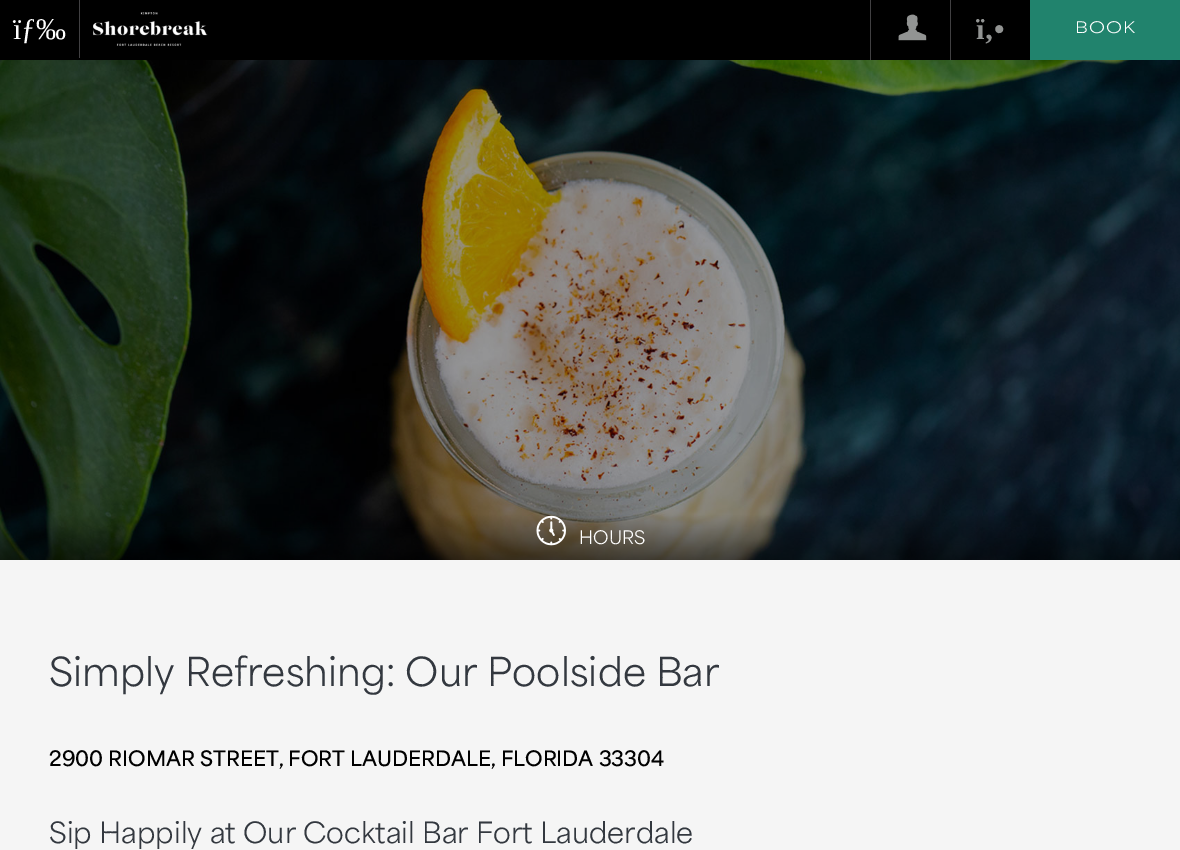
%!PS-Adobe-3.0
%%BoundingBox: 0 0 1180 850
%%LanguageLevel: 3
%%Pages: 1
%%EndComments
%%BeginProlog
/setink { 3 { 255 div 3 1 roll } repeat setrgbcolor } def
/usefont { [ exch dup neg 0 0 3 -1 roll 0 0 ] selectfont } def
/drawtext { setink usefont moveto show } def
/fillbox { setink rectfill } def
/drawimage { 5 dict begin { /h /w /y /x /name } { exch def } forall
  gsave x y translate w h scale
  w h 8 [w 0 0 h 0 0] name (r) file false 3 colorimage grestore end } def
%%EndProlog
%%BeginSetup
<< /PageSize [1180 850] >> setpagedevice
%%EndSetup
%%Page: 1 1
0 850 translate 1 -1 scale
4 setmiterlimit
0 0 1180 850 245 245 245 fillbox
0 0 1030 60 0 0 0 fillbox
79 0 1 58 65 64 66 fillbox
(ïƒ‰) 13 39 /LiberationSerif-Regular 30 255 255 255 drawtext
(assets/img1.rgb) 93 12 115 34 drawimage
870 0 1 60 65 64 66 fillbox
(assets/img2.rgb) 898 14 29 27 drawimage
950 0 1 60 65 64 66 fillbox
(ï‚•) 976 39 /LiberationSerif-Bold 30 146 148 147 drawtext
1030 0 150 60 33 131 109 fillbox
/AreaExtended-Regular 15 usefont
255 255 255 setink
1075 33 moveto 1 0 (BOOK) ashow
(assets/img3.rgb) 0 60 1180 500 drawimage
(assets/img4.rgb) 536 515 30 31 drawimage
(HOURS) 579 544 /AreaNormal-Regular 17.5 255 255 255 drawtext
(Simply Refreshing: Our Poolside Bar) 49 686 /AreaNormal-Regular 37.5 51 56 63 drawtext
(2900 RIOMAR STREET, FORT LAUDERDALE, FLORIDA 33304) 49 766 /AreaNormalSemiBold-SemiBold 20 0 0 0 drawtext
(Sip Happily at Our Cocktail Bar Fort Lauderdale) 49 843 /AreaNormal-Regular 27.5 51 56 63 drawtext
showpage
%%EOF
